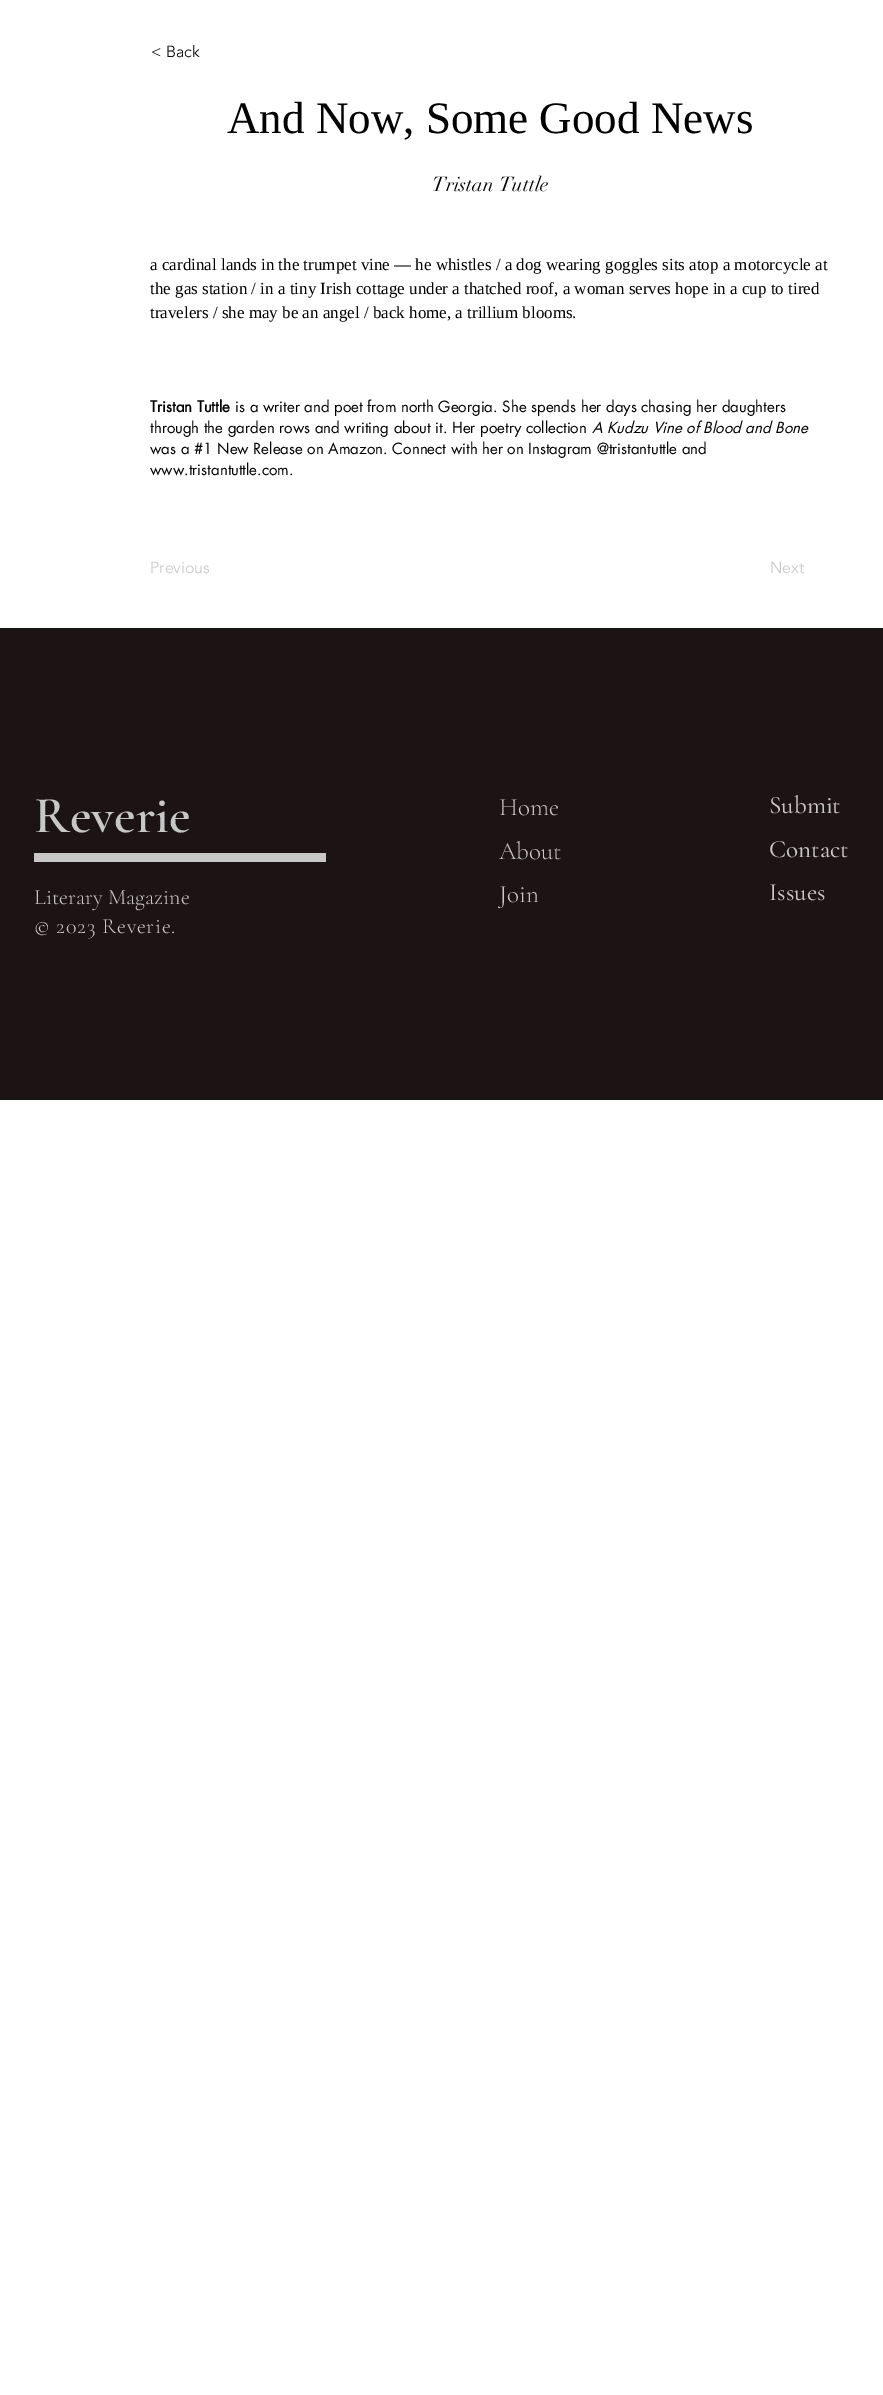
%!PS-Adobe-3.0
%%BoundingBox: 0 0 883 2395
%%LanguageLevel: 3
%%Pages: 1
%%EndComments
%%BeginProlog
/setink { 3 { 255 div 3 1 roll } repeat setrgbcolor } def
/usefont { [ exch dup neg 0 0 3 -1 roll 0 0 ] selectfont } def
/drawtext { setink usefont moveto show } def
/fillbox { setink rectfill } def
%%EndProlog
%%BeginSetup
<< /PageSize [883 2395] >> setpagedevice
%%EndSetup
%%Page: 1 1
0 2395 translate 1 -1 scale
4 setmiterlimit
0 0 883 2395 255 255 255 fillbox
(< Back) 151 57 /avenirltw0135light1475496-Light 16 0 0 0 drawtext
(And Now, Some Good News) 227 133 /LiberationSerif-Regular 45 0 0 0 drawtext
(Tristan Tuttle) 432 191 /didot-Regular 20 0 0 0 drawtext
(a cardinal lands in the trumpet vine — he whistles / a dog wearing goggles sits atop a motorcycle at) 150 270 /LiberationSerif-Regular 17 0 0 0 drawtext
(the gas station / in a tiny Irish cottage under a thatched roof, a woman serves hope in a cup to tired) 150 294 /LiberationSerif-Regular 17 0 0 0 drawtext
(travelers / she may be an angel / back home, a trillium blooms.) 150 318 /LiberationSerif-Regular 17 0 0 0 drawtext
(Tristan Tuttle) 150 412 /futura-Bold 15 0 0 0 drawtext
(is a writer and poet from north Georgia. She spends her days chasing her daughters) 235 412 /futura-Regular 15 0 0 0 drawtext
(through the garden rows and writing about it. Her poetry collection) 150 433 /futura-Regular 15 0 0 0 drawtext
(A Kudzu Vine of Blood and Bone) 592 433 /futura-Italic 15 0 0 0 drawtext
(was a #1 New Release on Amazon. Connect with her on Instagram @tristantuttle and) 150 454 /futura-Regular 15 0 0 0 drawtext
(www.tristantuttle.com.) 150 475 /futura-Regular 15 0 0 0 drawtext
(Previous) 150 573 /avenirltw0135light1475496-Light 16 199 199 199 drawtext
(Next) 770 573 /avenirltw0135light1475496-Light 16 199 199 199 drawtext
0 628 883 472 28 19 21 fillbox
(Reverie) 34 832 /CormorantGaramond-SemiBold 52 199 199 199 drawtext
34 853 292 9 199 199 199 fillbox
(Literary Magazine) 34 904 /CormorantGaramond-Light 22 199 199 199 drawtext
34 933 moveto 0.7 0 (© 2023 Reverie.) ashow
(Home) 499 815 /CormorantGaramond-Light 25 199 199 199 drawtext
(About) 499 859 /CormorantGaramond-Light 25 199 199 199 drawtext
(Join) 499 902 /CormorantGaramond-Light 25 199 199 199 drawtext
(Submit) 769 813 /CormorantGaramond-Medium 25 199 199 199 drawtext
(Contact) 769 857 /CormorantGaramond-Medium 25 199 199 199 drawtext
(Issues) 769 900 /CormorantGaramond-Medium 25 199 199 199 drawtext
showpage
%%EOF
